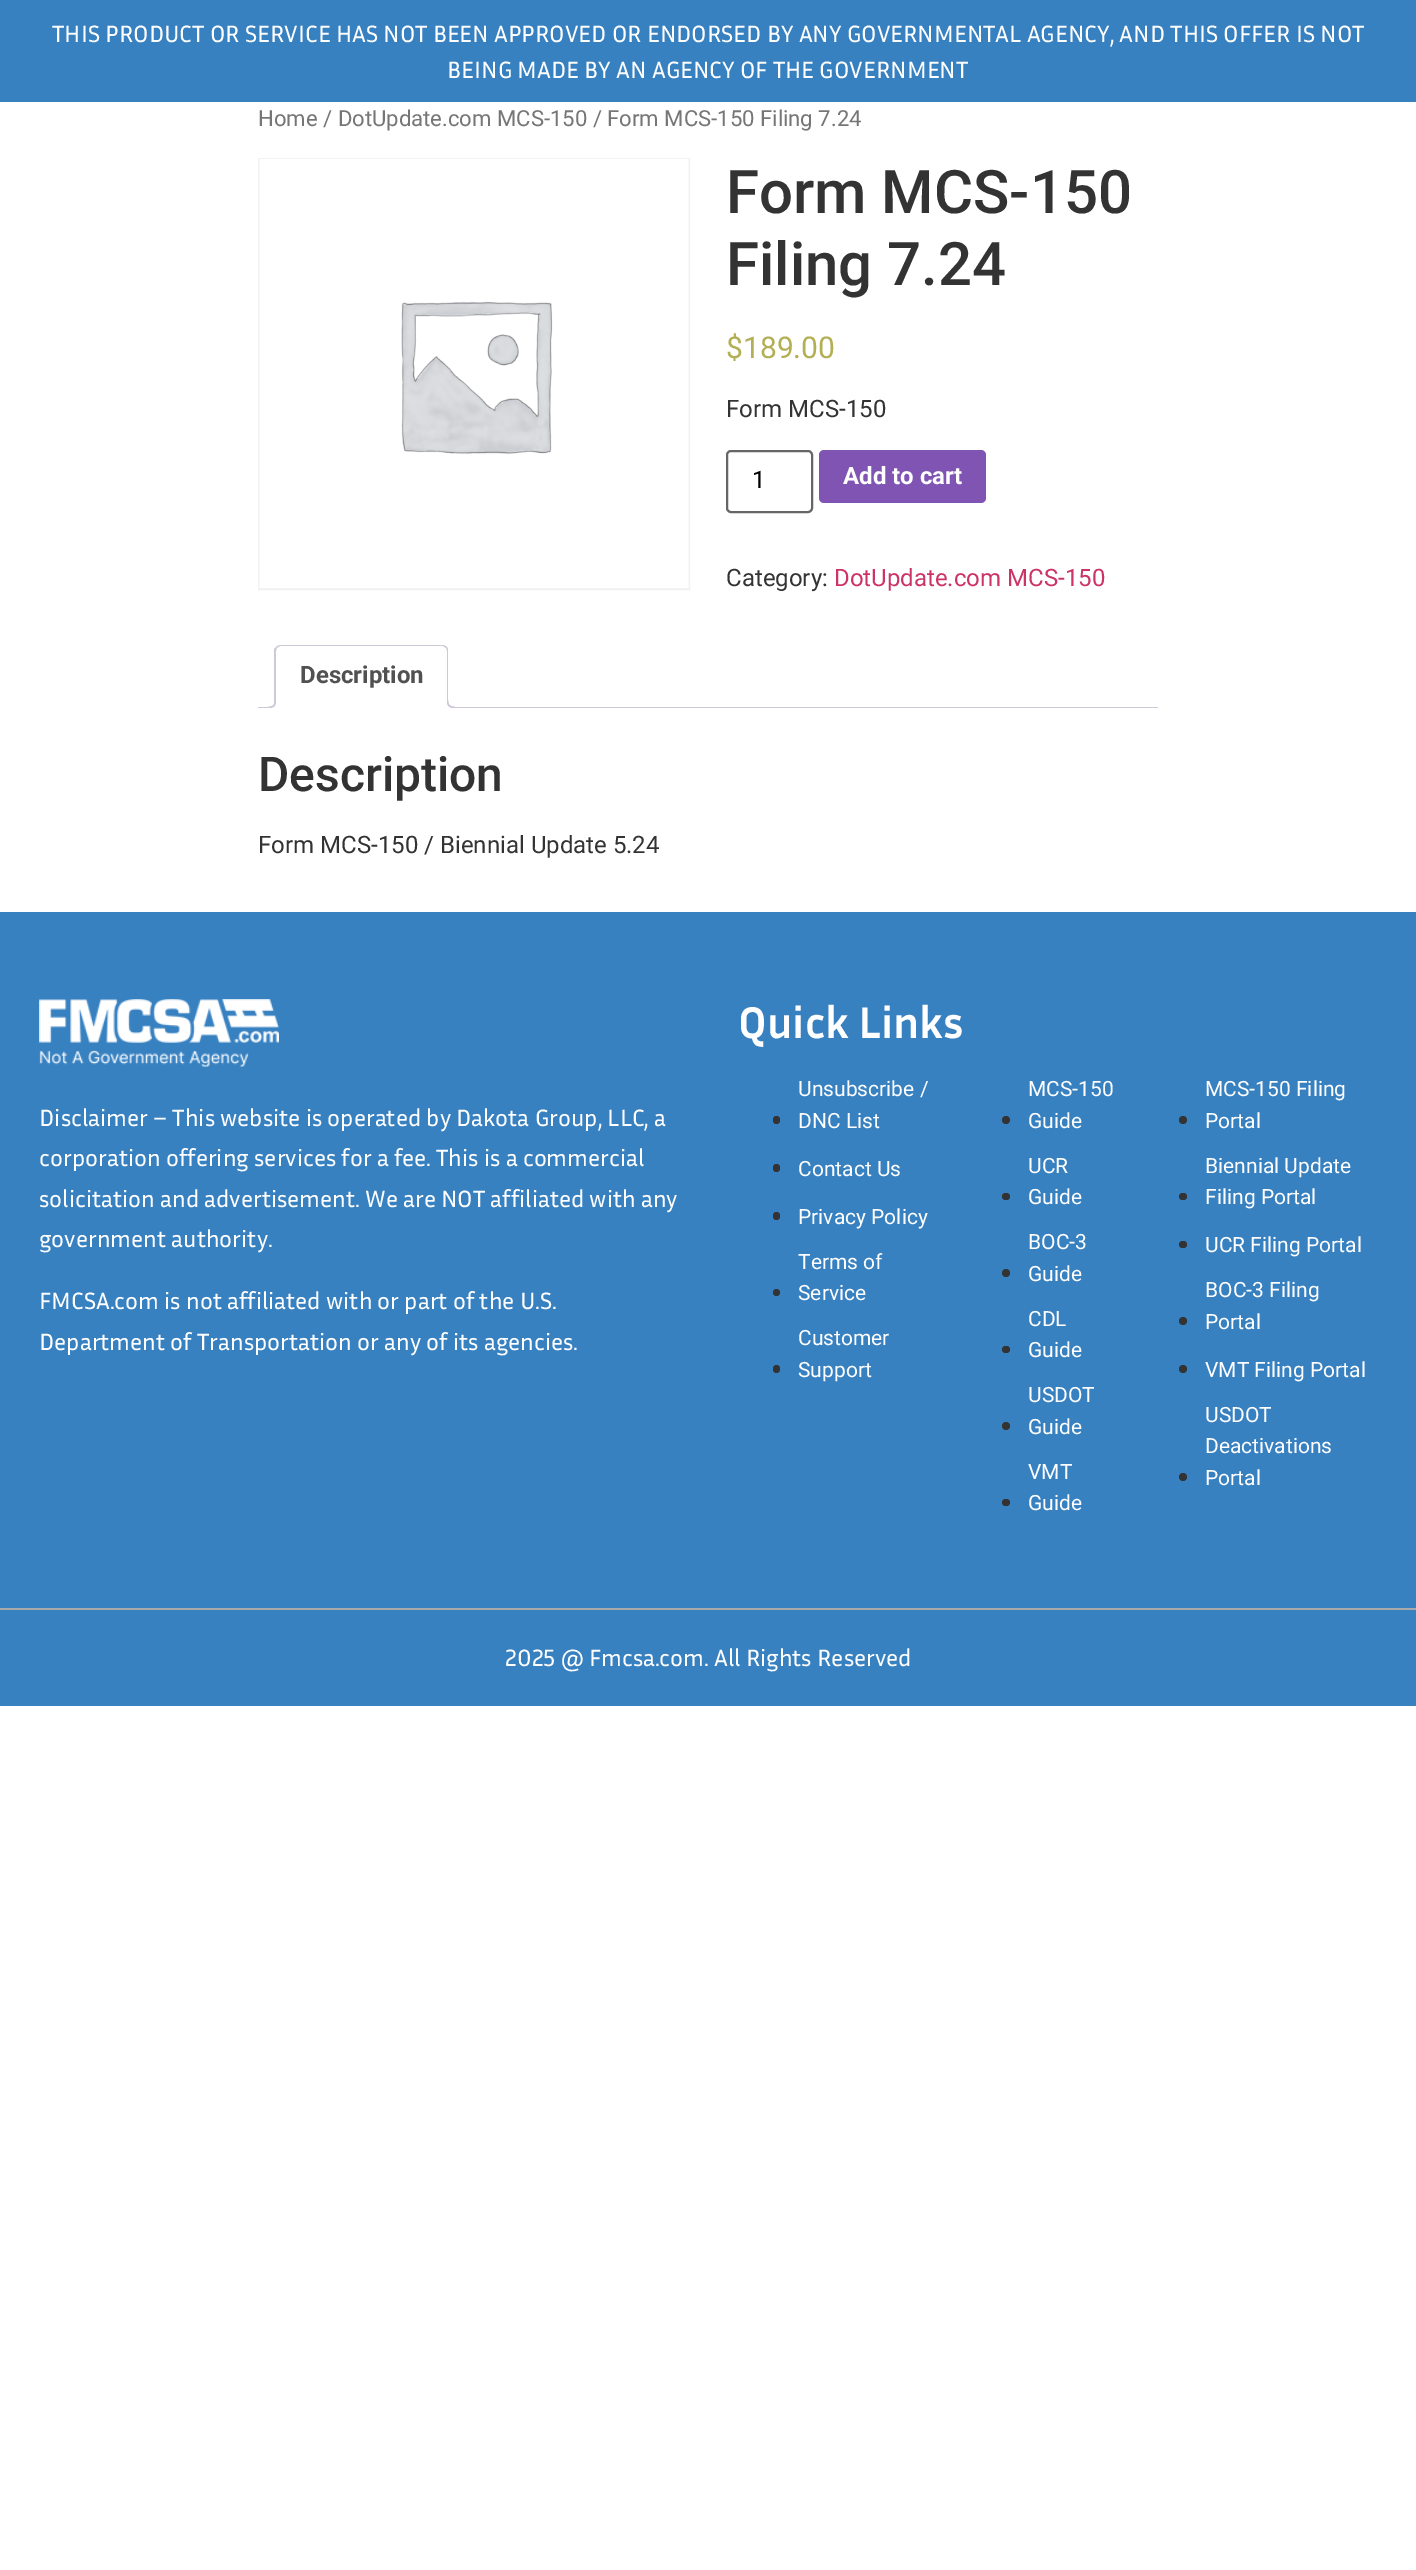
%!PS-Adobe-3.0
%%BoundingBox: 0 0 1416 2570
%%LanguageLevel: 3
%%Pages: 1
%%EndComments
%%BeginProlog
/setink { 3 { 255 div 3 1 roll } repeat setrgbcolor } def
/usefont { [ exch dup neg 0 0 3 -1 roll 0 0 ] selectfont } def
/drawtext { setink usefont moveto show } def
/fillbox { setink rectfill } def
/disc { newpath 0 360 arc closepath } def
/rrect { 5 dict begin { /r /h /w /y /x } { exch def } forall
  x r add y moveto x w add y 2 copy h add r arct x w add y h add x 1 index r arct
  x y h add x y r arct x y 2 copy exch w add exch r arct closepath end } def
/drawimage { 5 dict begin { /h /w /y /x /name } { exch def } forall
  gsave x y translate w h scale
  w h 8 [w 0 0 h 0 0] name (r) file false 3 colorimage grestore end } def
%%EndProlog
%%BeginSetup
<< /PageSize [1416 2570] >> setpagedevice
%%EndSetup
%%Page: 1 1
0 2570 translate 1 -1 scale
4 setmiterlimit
0 0 1416 2570 255 255 255 fillbox
0 0 1416 102 56 129 193 fillbox
(THIS PRODUCT OR SERVICE HAS NOT BEEN APPROVED OR ENDORSED BY ANY GOVERNMENTAL AGENCY, AND THIS OFFER IS NOT) 52 42 /InriaSans-Regular 24 255 255 255 drawtext
(BEING MADE BY AN AGENCY OF THE GOVERNMENT) 447 78 /InriaSans-Regular 24 255 255 255 drawtext
(Home / DotUpdate.com MCS-150 / Form MCS-150 Filing 7.24) 258 126 /Roboto-Regular 22.1 118 118 118 drawtext
242 242 242 setink
2 setlinewidth
259 159 430 430 rectstroke
(assets/img1.rgb) 259 159 430 429 drawimage
(Form MCS-150) 726 213 /Roboto-Medium 60 51 51 51 drawtext
(Filing 7.24) 726 285 /Roboto-Medium 60 51 51 51 drawtext
($189.00) 726 358 /Roboto-Regular 30 179 175 84 drawtext
(Form MCS-150) 726 417 /Roboto-Regular 24 51 51 51 drawtext
102 102 102 setink
727 451 85 61 4 rrect stroke
(1) 752 488 /Roboto-Regular 24 0 0 0 drawtext
127 84 179 setink
819 450 167 53 5 rrect fill
(Add to cart) 843 484 /Roboto-Bold 24 255 255 255 drawtext
(Category:) 726 586 /Roboto-Regular 24 51 51 51 drawtext
(DotUpdate.com MCS-150) 834 586 /Roboto-Regular 24 204 51 102 drawtext
258 707 900 1 207 200 216 fillbox
255 255 255 setink
281 645 moveto 443 645 lineto 446.5 645 449 647.5 449 651 curveto 449 708 lineto 275 708 lineto 275 651 lineto 275 647.5 277.5 645 281 645 curveto closepath fill
207 200 216 setink
280 645 moveto 279 645 277 646 276 647 curveto 277 648 lineto 278 647 279 646 280 646 curveto 443 646 lineto 446 648 lineto 447 647 lineto 446 646 444 645 442 645 curveto closepath fill
447 647 moveto 448 648 448 650 448 651 curveto 448 708 lineto 446 706 lineto 447 706 lineto 447 651 lineto 447 650 447 649 446 648 curveto closepath fill
255 255 255 setink
274 708 moveto 448 708 lineto 446 706 lineto 276 706 lineto closepath fill
207 200 216 setink
274 708 moveto 274 649 lineto 276 647 lineto 277 648 lineto 276 649 276 650 276 651 curveto 276 706 lineto closepath fill
(Description) 300 683 /Roboto-Bold 24 81 81 81 drawtext
gsave
258 645 900 63 rectclip
255 255 255 setink
272 707.5 moveto 272 711 lineto 276.5 711 279 708.5 279 704 curveto 275.5 704 lineto 275 705.5 273.5 707 272 707.5 curveto closepath fill
grestore
207 200 216 setink
268.5 700.5 moveto 276 700.5 lineto 276 706 274 708 268.5 708 curveto closepath 268.5 700.5 moveto 274.5 700.5 lineto 274.5 705 273 706.5 268.5 706.5 curveto closepath eofill
gsave
258 645 900 63 rectclip
255 255 255 setink
444 704 moveto 444 709.5 447 711 452 711 curveto 452 708 lineto 450 707.5 448 706 447.5 704 curveto closepath fill
grestore
447 700.5 moveto 454.5 700.5 lineto 454.5 708 lineto 450.5 708 447 706.5 447 702 curveto closepath 448.5 700.5 moveto 454.5 700.5 lineto 454.5 706.5 lineto 451.5 706.5 448.5 705.5 448.5 702 curveto closepath eofill
(Description) 258 791 /Roboto-Medium 48 51 51 51 drawtext
(Form MCS-150 / Biennial Update 5.24) 258 853 /Roboto-Regular 24 51 51 51 drawtext
0 912 1416 696 56 129 193 fillbox
(assets/img2.rgb) 39 999 240 68 drawimage
(Disclaimer – This website is operated by Dakota Group, LLC, a) 39 1126 /InriaSans-Regular 24 255 255 255 drawtext
(corporation offering services for a fee. This is a commercial) 39 1166 /InriaSans-Regular 24 255 255 255 drawtext
(solicitation and advertisement. We are NOT affiliated with any) 39 1207 /InriaSans-Regular 24 255 255 255 drawtext
(government authority.) 39 1247 /InriaSans-Regular 24 255 255 255 drawtext
(FMCSA.com is not affiliated with or part of the U.S.) 39 1309 /InriaSans-Regular 24 255 255 255 drawtext
(Department of Transportation or any of its agencies.) 39 1350 /InriaSans-Regular 24 255 255 255 drawtext
(Quick Links) 738 1038 /InriaSans-Bold 45 255 255 255 drawtext
51 51 51 setink
773 1116 7 8 3.5 rrect fill
(Unsubscribe /) 798 1096 /Roboto-Regular 21 255 255 255 drawtext
(DNC List) 798 1128 /Roboto-Regular 21 255 255 255 drawtext
51 51 51 setink
773 1164 7 8 3.5 rrect fill
(Contact Us) 798 1176 /Roboto-Regular 21 255 255 255 drawtext
51 51 51 setink
773 1212 7 8 3.5 rrect fill
(Privacy Policy) 798 1224 /Roboto-Regular 21 255 255 255 drawtext
51 51 51 setink
776.5 1292.5 3.5 disc fill
(Terms of) 798 1269 /Roboto-Regular 21 255 255 255 drawtext
(Service) 798 1300 /Roboto-Regular 21 255 255 255 drawtext
51 51 51 setink
773 1365 7 8 3.5 rrect fill
(Customer) 798 1345 /Roboto-Regular 21 255 255 255 drawtext
(Support) 798 1377 /Roboto-Regular 21 255 255 255 drawtext
51 51 51 setink
1006 1120 4 disc fill
(MCS-150) 1028 1096 /Roboto-Regular 21 255 255 255 drawtext
(Guide) 1028 1128 /Roboto-Regular 21 255 255 255 drawtext
51 51 51 setink
1002 1193 8 7 3.5 rrect fill
(UCR) 1028 1173 /Roboto-Regular 21 255 255 255 drawtext
(Guide) 1028 1204 /Roboto-Regular 21 255 255 255 drawtext
51 51 51 setink
1006 1273 4 disc fill
(BOC-3) 1028 1249 /Roboto-Regular 21 255 255 255 drawtext
(Guide) 1028 1281 /Roboto-Regular 21 255 255 255 drawtext
51 51 51 setink
1002 1346 8 7 3.5 rrect fill
(CDL) 1028 1326 /Roboto-Regular 21 255 255 255 drawtext
(Guide) 1028 1357 /Roboto-Regular 21 255 255 255 drawtext
51 51 51 setink
1006 1426 4 disc fill
(USDOT) 1028 1402 /Roboto-Regular 21 255 255 255 drawtext
(Guide) 1028 1434 /Roboto-Regular 21 255 255 255 drawtext
51 51 51 setink
1002 1499 8 7 3.5 rrect fill
(VMT) 1028 1479 /Roboto-Regular 21 255 255 255 drawtext
(Guide) 1028 1510 /Roboto-Regular 21 255 255 255 drawtext
51 51 51 setink
1183 1120 4 disc fill
(MCS-150 Filing) 1205 1096 /Roboto-Regular 21 255 255 255 drawtext
(Portal) 1205 1128 /Roboto-Regular 21 255 255 255 drawtext
51 51 51 setink
1179 1193 8 7 3.5 rrect fill
(Biennial Update) 1205 1173 /Roboto-Regular 21 255 255 255 drawtext
(Filing Portal) 1205 1204 /Roboto-Regular 21 255 255 255 drawtext
51 51 51 setink
1179 1241 8 7 3.5 rrect fill
(UCR Filing Portal) 1205 1252 /Roboto-Regular 21 255 255 255 drawtext
51 51 51 setink
1183 1321 4 disc fill
(BOC-3 Filing) 1205 1297 /Roboto-Regular 21 255 255 255 drawtext
(Portal) 1205 1329 /Roboto-Regular 21 255 255 255 drawtext
51 51 51 setink
1183 1369 4 disc fill
(VMT Filing Portal) 1205 1377 /Roboto-Regular 21 255 255 255 drawtext
51 51 51 setink
1183 1477 4 disc fill
(USDOT) 1205 1422 /Roboto-Regular 21 255 255 255 drawtext
(Deactivations) 1205 1453 /Roboto-Regular 21 255 255 255 drawtext
(Portal) 1205 1485 /Roboto-Regular 21 255 255 255 drawtext
0 1610 1416 96 56 129 193 fillbox
0 1608 1416 2 169 169 169 fillbox
(2025 @ Fmcsa.com. All Rights Reserved) 505 1666 /InriaSans-Regular 24 255 255 255 drawtext
showpage
%%EOF
